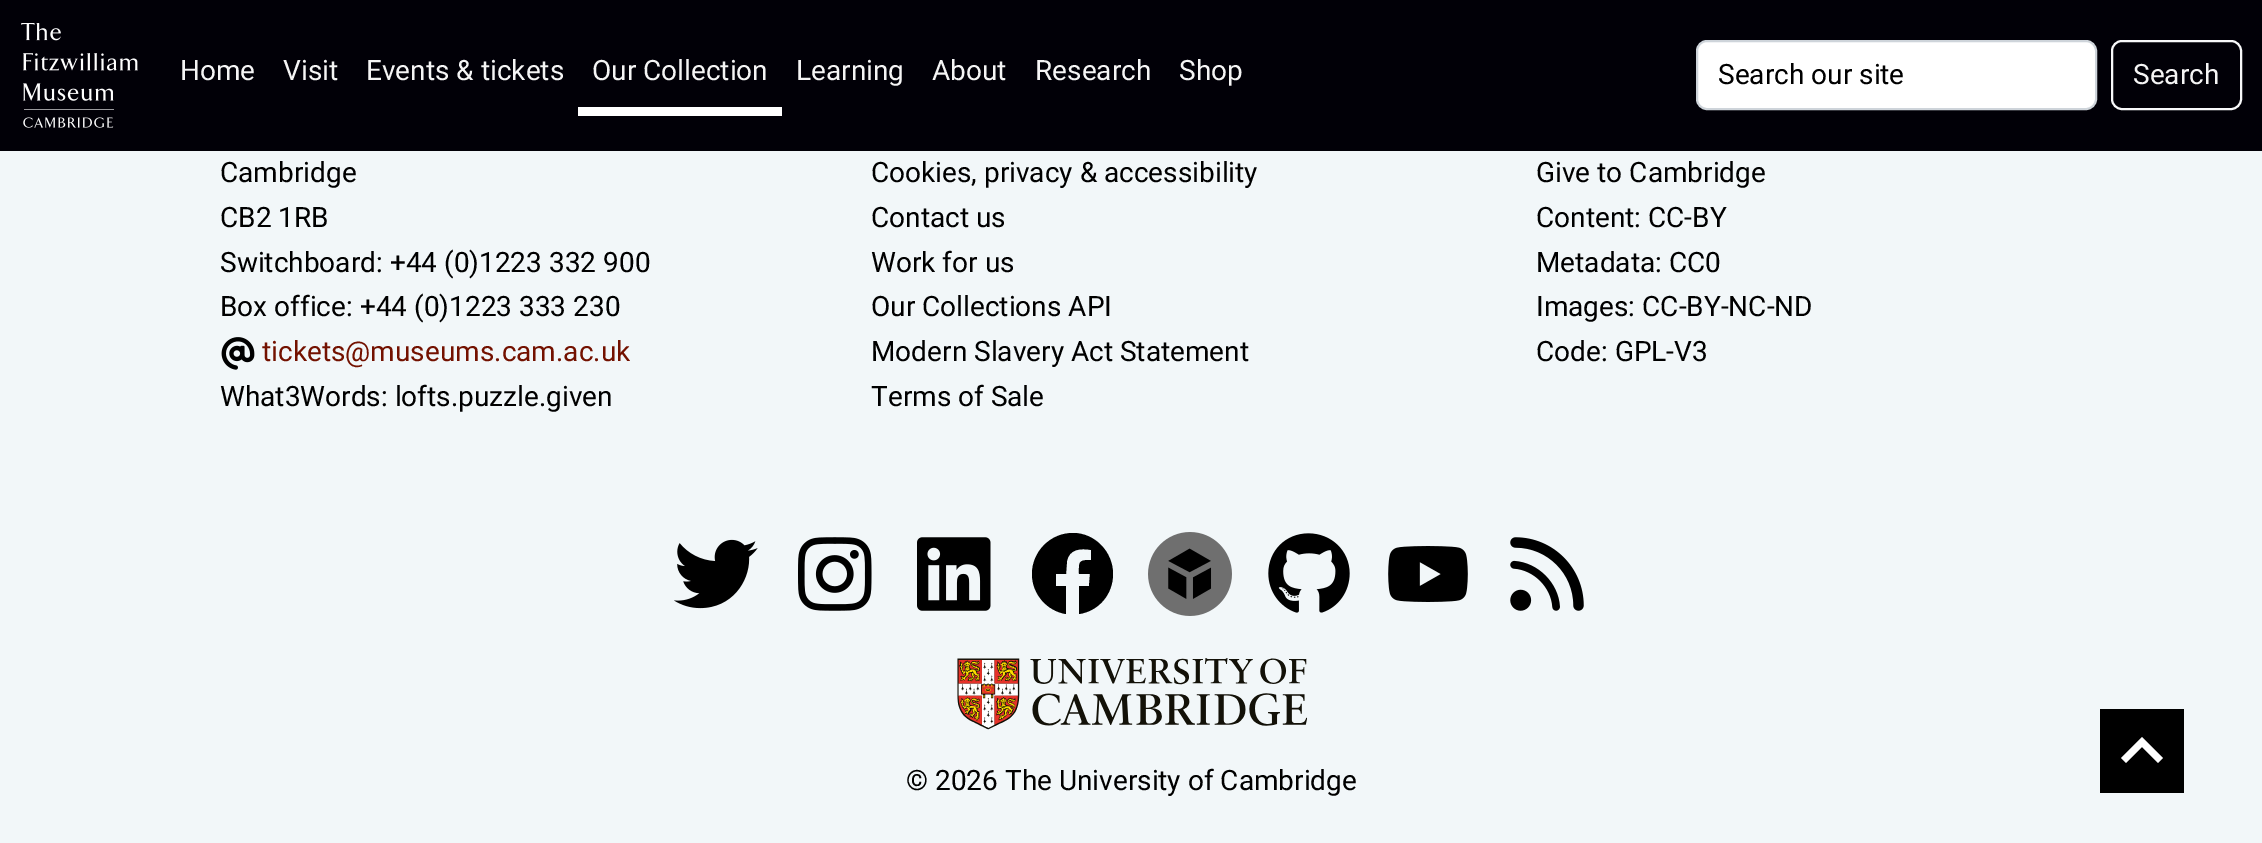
%!PS-Adobe-3.0
%%BoundingBox: 0 0 2262 843
%%LanguageLevel: 3
%%Pages: 1
%%EndComments
%%BeginProlog
/setink { 3 { 255 div 3 1 roll } repeat setrgbcolor } def
/usefont { [ exch dup neg 0 0 3 -1 roll 0 0 ] selectfont } def
/drawtext { setink usefont moveto show } def
/fillbox { setink rectfill } def
/rrect { 5 dict begin { /r /h /w /y /x } { exch def } forall
  x r add y moveto x w add y 2 copy h add r arct x w add y h add x 1 index r arct
  x y h add x y r arct x y 2 copy exch w add exch r arct closepath end } def
/drawimage { 5 dict begin { /h /w /y /x /name } { exch def } forall
  gsave x y translate w h scale
  w h 8 [w 0 0 h 0 0] name (r) file false 3 colorimage grestore end } def
%%EndProlog
%%BeginSetup
<< /PageSize [2262 843] >> setpagedevice
%%EndSetup
%%Page: 1 1
0 843 translate 1 -1 scale
4 setmiterlimit
0 0 2262 843 242 247 249 fillbox
0 0 2262 151 1 0 7 fillbox
(assets/img1.rgb) 21 23 117 105 drawimage
(Home) 180 80 /Roboto-Regular 28 245 245 245 drawtext
(Visit) 283 80 /Roboto-Regular 28 245 245 245 drawtext
(Events & tickets) 366 80 /Roboto-Regular 28 245 245 245 drawtext
578 107 204 9 255 255 255 fillbox
(Our Collection) 592 80 /Roboto-Regular 28 245 245 245 drawtext
(Learning) 796 80 /Roboto-Regular 28 245 245 245 drawtext
(About) 932 80 /Roboto-Regular 28 245 245 245 drawtext
(Research) 1035 80 /Roboto-Regular 28 245 245 245 drawtext
(Shop) 1179 80 /Roboto-Regular 28 245 245 245 drawtext
255 255 255 setink
1697 41 399 68 10 rrect gsave fill grestore
206 212 218 setink
2 setlinewidth
stroke
(Search our site) 1718 84 /Roboto-Regular 28 0 0 0 drawtext
248 249 250 setink
2112 41 129 68 10 rrect stroke
(Search) 2133 84 /Roboto-Regular 28 245 245 245 drawtext
(Cambridge) 220 182 /Roboto-Regular 28 0 0 0 drawtext
(CB2 1RB) 220 227 /Roboto-Regular 28 0 0 0 drawtext
(Switchboard: +44 \(0\)1223 332 900) 220 272 /Roboto-Regular 28 0 0 0 drawtext
(Box office: +44 \(0\)1223 333 230) 220 316 /Roboto-Regular 28 0 0 0 drawtext
(assets/img2.rgb) 221 337 34 33 drawimage
(tickets@museums.cam.ac.uk) 262 361 /Roboto-Regular 28 115 17 0 drawtext
(What3Words: lofts.puzzle.given) 220 406 /Roboto-Regular 28 0 0 0 drawtext
(Cookies, privacy & accessibility) 871 182 /Roboto-Regular 28 0 0 0 drawtext
(Contact us) 871 227 /Roboto-Regular 28 0 0 0 drawtext
(Work for us) 871 272 /Roboto-Regular 28 0 0 0 drawtext
(Our Collections API) 871 316 /Roboto-Regular 28 0 0 0 drawtext
(Modern Slavery Act Statement) 871 361 /Roboto-Regular 28 0 0 0 drawtext
(Terms of Sale) 871 406 /Roboto-Regular 28 0 0 0 drawtext
(Give to Cambridge) 1536 182 /Roboto-Regular 28 0 0 0 drawtext
(Content: CC-BY) 1536 227 /Roboto-Regular 28 0 0 0 drawtext
(Metadata: CC0) 1536 272 /Roboto-Regular 28 0 0 0 drawtext
(Images: CC-BY-NC-ND) 1536 316 /Roboto-Regular 28 0 0 0 drawtext
(Code: GPL-V3) 1536 361 /Roboto-Regular 28 0 0 0 drawtext
(assets/img3.rgb) 674 539 84 70 drawimage
(assets/img4.rgb) 798 537 74 74 drawimage
(assets/img5.rgb) 917 537 74 74 drawimage
1113 574 moveto 1113 552 1095 533 1073 533 curveto 1050 533 1032 552 1032 574 curveto 1032 594 1047 611 1066 614 curveto 1066 586 lineto 1056 586 lineto 1056 574 lineto 1066 574 lineto 1067 561 lineto 1069 549 1081 548 1091 550 curveto 1091 560 lineto 1078 560 1079 562 1079 574 curveto 1090 574 lineto 1089 586 lineto 1079 586 lineto 1079 614 lineto 1099 611 1113 594 1113 574 curveto closepath fill
(assets/img6.rgb) 1148 532 84 84 drawimage
(assets/img7.rgb) 1268 533 82 80 drawimage
(assets/img8.rgb) 1388 546 80 56 drawimage
(assets/img9.rgb) 1510 537 74 74 drawimage
(assets/img10.rgb) 957 658 350 72 drawimage
(© 2026 The University of Cambridge) 906 790 /Roboto-Regular 28 0 0 0 drawtext
2100 709 84 84 0 0 0 fillbox
255 255 255 setink
2126 763 moveto 2142 747 lineto 2158 763 lineto 2163 758 lineto 2142 737 lineto 2121 758 lineto closepath fill
showpage
%%EOF
